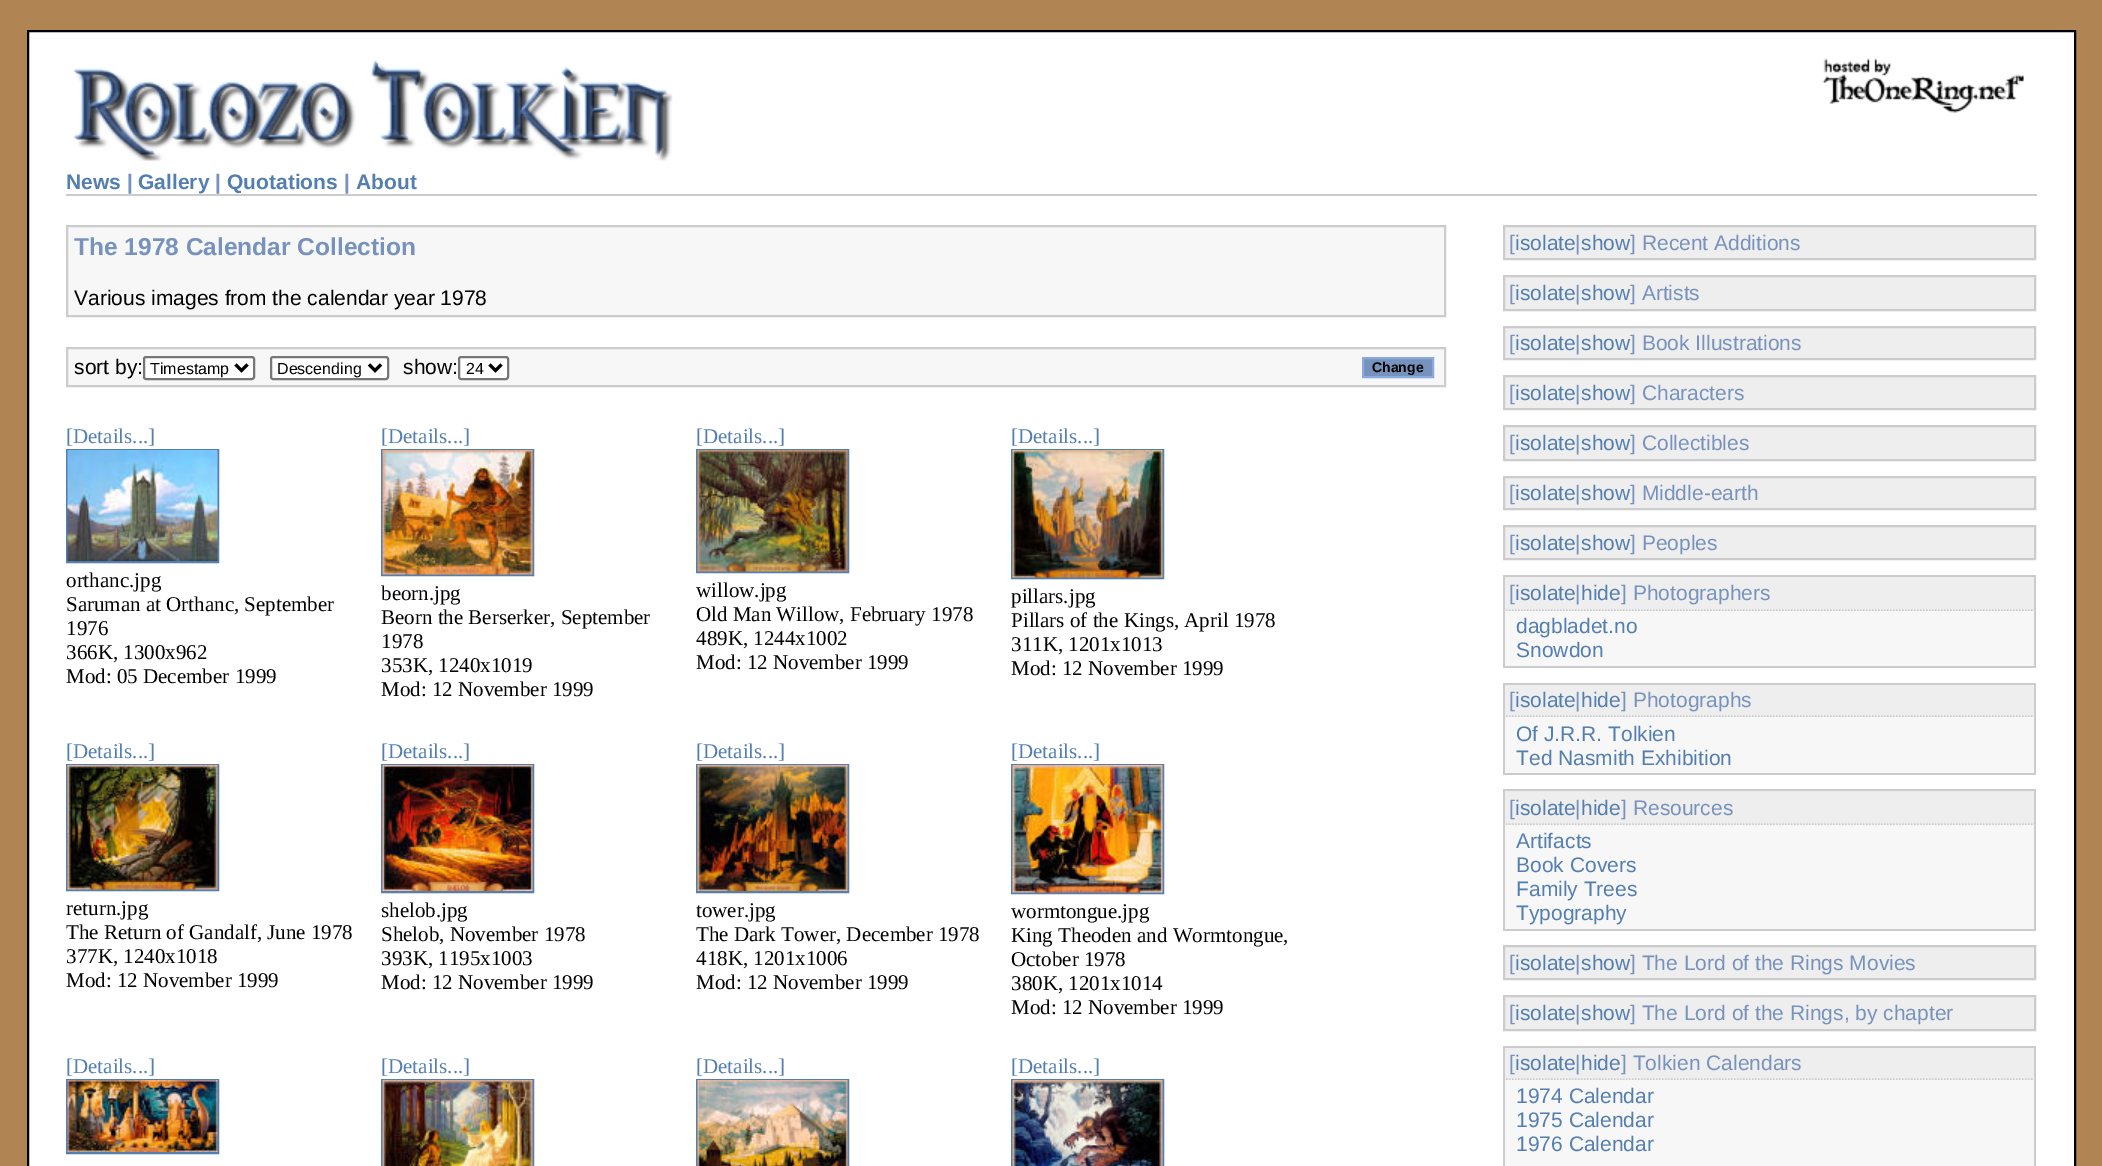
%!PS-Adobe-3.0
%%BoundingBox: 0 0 2102 1166
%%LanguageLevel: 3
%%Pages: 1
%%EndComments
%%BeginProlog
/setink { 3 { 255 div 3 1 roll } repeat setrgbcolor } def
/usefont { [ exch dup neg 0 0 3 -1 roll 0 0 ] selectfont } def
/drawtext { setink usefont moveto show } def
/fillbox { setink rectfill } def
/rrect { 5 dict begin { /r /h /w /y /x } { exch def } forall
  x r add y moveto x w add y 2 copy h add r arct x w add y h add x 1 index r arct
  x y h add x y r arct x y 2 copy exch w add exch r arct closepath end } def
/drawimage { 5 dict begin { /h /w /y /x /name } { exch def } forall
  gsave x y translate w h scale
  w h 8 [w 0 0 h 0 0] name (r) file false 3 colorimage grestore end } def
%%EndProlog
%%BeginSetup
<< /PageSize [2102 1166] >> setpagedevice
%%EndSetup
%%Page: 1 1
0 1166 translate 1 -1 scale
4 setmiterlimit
0 0 2102 1166 176 133 83 fillbox
255 255 255 setink
28 31 moveto 2075 31 lineto 2075 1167 lineto 28 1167 lineto closepath gsave fill grestore
0 0 0 setink
2 setlinewidth
stroke
(assets/img1.rgb) 73 60 600 101 drawimage
(assets/img2.rgb) 1822 58 202 55 drawimage
66 194 1971 2 204 204 204 fillbox
(News) 66 189 /LiberationSans-Bold 21 83 126 176 drawtext
(|) 127 189 /LiberationSans-Bold 21 119 146 188 drawtext
(Gallery) 138 189 /LiberationSans-Bold 21 83 126 176 drawtext
(|) 215 189 /LiberationSans-Bold 21 119 146 188 drawtext
(Quotations) 227 189 /LiberationSans-Bold 21 83 126 176 drawtext
(|) 344 189 /LiberationSans-Bold 21 119 146 188 drawtext
(About) 356 189 /LiberationSans-Bold 21 83 126 176 drawtext
247 247 247 setink
67 226 moveto 1445 226 lineto 1445 316 lineto 67 316 lineto closepath gsave fill grestore
204 204 204 setink
stroke
(The 1978 Calendar Collection) 74 255 /LiberationSans-Bold 24.5 119 146 188 drawtext
(Various images from the calendar year 1978) 74 305 /LiberationSans-Regular 21 0 0 0 drawtext
247 247 247 setink
67 348 moveto 1445 348 lineto 1445 386 lineto 67 386 lineto closepath gsave fill grestore
204 204 204 setink
stroke
(sort by:) 74 374 /LiberationSans-Regular 21 0 0 0 drawtext
255 255 255 setink
144 357 110 22 2 rrect gsave fill grestore
118 118 118 setink
stroke
0 0 0 setink
3 setlinewidth
235.5 364.5 moveto 241.5 370.5 lineto 247.5 364.5 lineto stroke
(Timestamp) 150 374 /LiberationSans-Regular 16 0 0 0 drawtext
255 255 255 setink
271 357 117 22 2 rrect gsave fill grestore
118 118 118 setink
2 setlinewidth
stroke
0 0 0 setink
3 setlinewidth
369 364.5 moveto 375 370.5 lineto 381 364.5 lineto stroke
(Descending) 277 374 /LiberationSans-Regular 16 0 0 0 drawtext
(show:) 403 374 /LiberationSans-Regular 21 0 0 0 drawtext
255 255 255 setink
459 357 49 22 2 rrect gsave fill grestore
118 118 118 setink
2 setlinewidth
stroke
0 0 0 setink
3 setlinewidth
489.5 364.5 moveto 495.5 370.5 lineto 501.5 364.5 lineto stroke
(24) 466 374 /LiberationSans-Regular 16 0 0 0 drawtext
119 146 188 setink
1363 358 moveto 1433 358 lineto 1433 377 lineto 1363 377 lineto closepath gsave fill grestore
136 170 221 setink
2 setlinewidth
stroke
(Change) 1372 372 /LiberationSans-Bold 14 0 0 0 drawtext
([Details...]) 66 443 /LiberationSerif-Regular 21 83 126 176 drawtext
67 450 151 112 rectstroke
(assets/img3.rgb) 67 450 151 111 drawimage
(orthanc.jpg) 66 587 /LiberationSerif-Regular 21 0 0 0 drawtext
(Saruman at Orthanc, September) 66 611 /LiberationSerif-Regular 21 0 0 0 drawtext
(1976) 66 635 /LiberationSerif-Regular 21 0 0 0 drawtext
(366K, 1300x962) 66 659 /LiberationSerif-Regular 21 0 0 0 drawtext
(Mod: 05 December 1999) 66 683 /LiberationSerif-Regular 21 0 0 0 drawtext
([Details...]) 381 443 /LiberationSerif-Regular 21 83 126 176 drawtext
382 450 151 125 rectstroke
(assets/img4.rgb) 382 450 151 125 drawimage
(beorn.jpg) 381 600 /LiberationSerif-Regular 21 0 0 0 drawtext
(Beorn the Berserker, September) 381 624 /LiberationSerif-Regular 21 0 0 0 drawtext
(1978) 381 648 /LiberationSerif-Regular 21 0 0 0 drawtext
(353K, 1240x1019) 381 672 /LiberationSerif-Regular 21 0 0 0 drawtext
(Mod: 12 November 1999) 381 696 /LiberationSerif-Regular 21 0 0 0 drawtext
([Details...]) 696 443 /LiberationSerif-Regular 21 83 126 176 drawtext
697 450 151 122 rectstroke
(assets/img5.rgb) 697 450 151 122 drawimage
(willow.jpg) 696 597 /LiberationSerif-Regular 21 0 0 0 drawtext
(Old Man Willow, February 1978) 696 621 /LiberationSerif-Regular 21 0 0 0 drawtext
(489K, 1244x1002) 696 645 /LiberationSerif-Regular 21 0 0 0 drawtext
(Mod: 12 November 1999) 696 669 /LiberationSerif-Regular 21 0 0 0 drawtext
([Details...]) 1011 443 /LiberationSerif-Regular 21 83 126 176 drawtext
1012 450 151 128 rectstroke
(assets/img6.rgb) 1012 450 151 128 drawimage
(pillars.jpg) 1011 603 /LiberationSerif-Regular 21 0 0 0 drawtext
(Pillars of the Kings, April 1978) 1011 627 /LiberationSerif-Regular 21 0 0 0 drawtext
(311K, 1201x1013) 1011 651 /LiberationSerif-Regular 21 0 0 0 drawtext
(Mod: 12 November 1999) 1011 675 /LiberationSerif-Regular 21 0 0 0 drawtext
([Details...]) 66 758 /LiberationSerif-Regular 21 83 126 176 drawtext
67 765 151 125 rectstroke
(assets/img7.rgb) 67 765 151 125 drawimage
(return.jpg) 66 915 /LiberationSerif-Regular 21 0 0 0 drawtext
(The Return of Gandalf, June 1978) 66 939 /LiberationSerif-Regular 21 0 0 0 drawtext
(377K, 1240x1018) 66 963 /LiberationSerif-Regular 21 0 0 0 drawtext
(Mod: 12 November 1999) 66 987 /LiberationSerif-Regular 21 0 0 0 drawtext
([Details...]) 381 758 /LiberationSerif-Regular 21 83 126 176 drawtext
382 765 151 127 rectstroke
(assets/img8.rgb) 382 765 151 126 drawimage
(shelob.jpg) 381 917 /LiberationSerif-Regular 21 0 0 0 drawtext
(Shelob, November 1978) 381 941 /LiberationSerif-Regular 21 0 0 0 drawtext
(393K, 1195x1003) 381 965 /LiberationSerif-Regular 21 0 0 0 drawtext
(Mod: 12 November 1999) 381 989 /LiberationSerif-Regular 21 0 0 0 drawtext
([Details...]) 696 758 /LiberationSerif-Regular 21 83 126 176 drawtext
697 765 151 127 rectstroke
(assets/img9.rgb) 697 765 151 126 drawimage
(tower.jpg) 696 917 /LiberationSerif-Regular 21 0 0 0 drawtext
(The Dark Tower, December 1978) 696 941 /LiberationSerif-Regular 21 0 0 0 drawtext
(418K, 1201x1006) 696 965 /LiberationSerif-Regular 21 0 0 0 drawtext
(Mod: 12 November 1999) 696 989 /LiberationSerif-Regular 21 0 0 0 drawtext
([Details...]) 1011 758 /LiberationSerif-Regular 21 83 126 176 drawtext
1012 765 151 128 rectstroke
(assets/img10.rgb) 1012 765 151 128 drawimage
(wormtongue.jpg) 1011 918 /LiberationSerif-Regular 21 0 0 0 drawtext
(King Theoden and Wormtongue,) 1011 942 /LiberationSerif-Regular 21 0 0 0 drawtext
(October 1978) 1011 966 /LiberationSerif-Regular 21 0 0 0 drawtext
(380K, 1201x1014) 1011 990 /LiberationSerif-Regular 21 0 0 0 drawtext
(Mod: 12 November 1999) 1011 1014 /LiberationSerif-Regular 21 0 0 0 drawtext
([Details...]) 66 1073 /LiberationSerif-Regular 21 83 126 176 drawtext
67 1080 151 73 rectstroke
(assets/img11.rgb) 67 1080 151 72 drawimage
([Details...]) 381 1073 /LiberationSerif-Regular 21 83 126 176 drawtext
382 1080 151 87 rectstroke
(assets/img12.rgb) 382 1080 151 86 drawimage
([Details...]) 696 1073 /LiberationSerif-Regular 21 83 126 176 drawtext
697 1080 151 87 rectstroke
(assets/img13.rgb) 697 1080 151 86 drawimage
([Details...]) 1011 1073 /LiberationSerif-Regular 21 83 126 176 drawtext
1012 1080 151 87 rectstroke
(assets/img14.rgb) 1012 1080 151 86 drawimage
238 238 238 setink
1504 226 moveto 2035 226 lineto 2035 259 lineto 1504 259 lineto closepath gsave fill grestore
204 204 204 setink
stroke
([) 1509 250 /LiberationSans-Regular 21 119 146 188 drawtext
(isolate) 1515 250 /LiberationSans-Regular 21 83 126 176 drawtext
(|) 1575 250 /LiberationSans-Regular 21 119 146 188 drawtext
(show) 1581 250 /LiberationSans-Regular 21 83 126 176 drawtext
(] Recent Additions) 1630 250 /LiberationSans-Regular 21 119 146 188 drawtext
238 238 238 setink
1504 276 moveto 2035 276 lineto 2035 310 lineto 1504 310 lineto closepath gsave fill grestore
204 204 204 setink
stroke
([) 1509 300 /LiberationSans-Regular 21 119 146 188 drawtext
(isolate) 1515 300 /LiberationSans-Regular 21 83 126 176 drawtext
(|) 1575 300 /LiberationSans-Regular 21 119 146 188 drawtext
(show) 1581 300 /LiberationSans-Regular 21 83 126 176 drawtext
(] Artists) 1630 300 /LiberationSans-Regular 21 119 146 188 drawtext
238 238 238 setink
1504 327 moveto 2035 327 lineto 2035 359 lineto 1504 359 lineto closepath gsave fill grestore
204 204 204 setink
stroke
([) 1509 350 /LiberationSans-Regular 21 119 146 188 drawtext
(isolate) 1515 350 /LiberationSans-Regular 21 83 126 176 drawtext
(|) 1575 350 /LiberationSans-Regular 21 119 146 188 drawtext
(show) 1581 350 /LiberationSans-Regular 21 83 126 176 drawtext
(] Book Illustrations) 1630 350 /LiberationSans-Regular 21 119 146 188 drawtext
238 238 238 setink
1504 376 moveto 2035 376 lineto 2035 409 lineto 1504 409 lineto closepath gsave fill grestore
204 204 204 setink
stroke
([) 1509 400 /LiberationSans-Regular 21 119 146 188 drawtext
(isolate) 1515 400 /LiberationSans-Regular 21 83 126 176 drawtext
(|) 1575 400 /LiberationSans-Regular 21 119 146 188 drawtext
(show) 1581 400 /LiberationSans-Regular 21 83 126 176 drawtext
(] Characters) 1630 400 /LiberationSans-Regular 21 119 146 188 drawtext
238 238 238 setink
1504 426 moveto 2035 426 lineto 2035 460 lineto 1504 460 lineto closepath gsave fill grestore
204 204 204 setink
stroke
([) 1509 450 /LiberationSans-Regular 21 119 146 188 drawtext
(isolate) 1515 450 /LiberationSans-Regular 21 83 126 176 drawtext
(|) 1575 450 /LiberationSans-Regular 21 119 146 188 drawtext
(show) 1581 450 /LiberationSans-Regular 21 83 126 176 drawtext
(] Collectibles) 1630 450 /LiberationSans-Regular 21 119 146 188 drawtext
238 238 238 setink
1504 477 moveto 2035 477 lineto 2035 509 lineto 1504 509 lineto closepath gsave fill grestore
204 204 204 setink
stroke
([) 1509 500 /LiberationSans-Regular 21 119 146 188 drawtext
(isolate) 1515 500 /LiberationSans-Regular 21 83 126 176 drawtext
(|) 1575 500 /LiberationSans-Regular 21 119 146 188 drawtext
(show) 1581 500 /LiberationSans-Regular 21 83 126 176 drawtext
(] Middle-earth) 1630 500 /LiberationSans-Regular 21 119 146 188 drawtext
238 238 238 setink
1504 526 moveto 2035 526 lineto 2035 559 lineto 1504 559 lineto closepath gsave fill grestore
204 204 204 setink
stroke
([) 1509 550 /LiberationSans-Regular 21 119 146 188 drawtext
(isolate) 1515 550 /LiberationSans-Regular 21 83 126 176 drawtext
(|) 1575 550 /LiberationSans-Regular 21 119 146 188 drawtext
(show) 1581 550 /LiberationSans-Regular 21 83 126 176 drawtext
(] Peoples) 1630 550 /LiberationSans-Regular 21 119 146 188 drawtext
1505 577 529 34 238 238 238 fillbox
1503 575 533 2 204 204 204 fillbox
2034 575 2 93 204 204 204 fillbox
1.5 setlinewidth
[1.5 1.5] 0 setdash
1503 610 moveto 2035.5 610 lineto stroke
1503 575 2 36 204 204 204 fillbox
([) 1509 600 /LiberationSans-Regular 21 119 146 188 drawtext
(isolate) 1515 600 /LiberationSans-Regular 21 83 126 176 drawtext
(|) 1575 600 /LiberationSans-Regular 21 119 146 188 drawtext
(hide) 1581 600 /LiberationSans-Regular 21 83 126 176 drawtext
(] Photographers) 1621 600 /LiberationSans-Regular 21 119 146 188 drawtext
1505 611 529 55 247 247 247 fillbox
1503 666 533 2 204 204 204 fillbox
1503 611 2 57 204 204 204 fillbox
(dagbladet.no) 1516 633 /LiberationSans-Regular 21 83 126 176 drawtext
(Snowdon) 1516 657 /LiberationSans-Regular 21 83 126 176 drawtext
1505 685 529 32 238 238 238 fillbox
1503 683 533 2 204 204 204 fillbox
2034 683 2 91 204 204 204 fillbox
1503 716 moveto 2035.5 716 lineto stroke
1503 683 2 34 204 204 204 fillbox
([) 1509 707 /LiberationSans-Regular 21 119 146 188 drawtext
(isolate) 1515 707 /LiberationSans-Regular 21 83 126 176 drawtext
(|) 1575 707 /LiberationSans-Regular 21 119 146 188 drawtext
(hide) 1581 707 /LiberationSans-Regular 21 83 126 176 drawtext
(] Photographs) 1621 707 /LiberationSans-Regular 21 119 146 188 drawtext
1505 717 529 56 247 247 247 fillbox
1503 773 533 2 204 204 204 fillbox
1503 717 2 57 204 204 204 fillbox
(Of J.R.R. Tolkien) 1516 741 /LiberationSans-Regular 21 83 126 176 drawtext
(Ted Nasmith Exhibition) 1516 765 /LiberationSans-Regular 21 83 126 176 drawtext
1505 791 529 34 238 238 238 fillbox
1503 789 533 2 204 204 204 fillbox
2034 789 2 141 204 204 204 fillbox
1503 824 moveto 2035.5 824 lineto stroke
1503 789 2 36 204 204 204 fillbox
([) 1509 815 /LiberationSans-Regular 21 119 146 188 drawtext
(isolate) 1515 815 /LiberationSans-Regular 21 83 126 176 drawtext
(|) 1575 815 /LiberationSans-Regular 21 119 146 188 drawtext
(hide) 1581 815 /LiberationSans-Regular 21 83 126 176 drawtext
(] Resources) 1621 815 /LiberationSans-Regular 21 119 146 188 drawtext
1505 825 529 104 247 247 247 fillbox
1503 929 533 2 204 204 204 fillbox
1503 825 2 105 204 204 204 fillbox
(Artifacts) 1516 848 /LiberationSans-Regular 21 83 126 176 drawtext
(Book Covers) 1516 872 /LiberationSans-Regular 21 83 126 176 drawtext
(Family Trees) 1516 896 /LiberationSans-Regular 21 83 126 176 drawtext
(Typography) 1516 920 /LiberationSans-Regular 21 83 126 176 drawtext
238 238 238 setink
1504 946 moveto 2035 946 lineto 2035 979 lineto 1504 979 lineto closepath gsave fill grestore
204 204 204 setink
2 setlinewidth
[] 0 setdash
stroke
([) 1509 970 /LiberationSans-Regular 21 119 146 188 drawtext
(isolate) 1515 970 /LiberationSans-Regular 21 83 126 176 drawtext
(|) 1575 970 /LiberationSans-Regular 21 119 146 188 drawtext
(show) 1581 970 /LiberationSans-Regular 21 83 126 176 drawtext
(] The Lord of the Rings Movies) 1630 970 /LiberationSans-Regular 21 119 146 188 drawtext
238 238 238 setink
1504 996 moveto 2035 996 lineto 2035 1030 lineto 1504 1030 lineto closepath gsave fill grestore
204 204 204 setink
stroke
([) 1509 1020 /LiberationSans-Regular 21 119 146 188 drawtext
(isolate) 1515 1020 /LiberationSans-Regular 21 83 126 176 drawtext
(|) 1575 1020 /LiberationSans-Regular 21 119 146 188 drawtext
(show) 1581 1020 /LiberationSans-Regular 21 83 126 176 drawtext
(] The Lord of the Rings, by chapter) 1630 1020 /LiberationSans-Regular 21 119 146 188 drawtext
1505 1048 529 32 238 238 238 fillbox
1503 1046 533 2 204 204 204 fillbox
2034 1046 2 120 204 204 204 fillbox
1.5 setlinewidth
[1.5 1.5] 0 setdash
1503 1079 moveto 2035.5 1079 lineto stroke
1503 1046 2 120 204 204 204 fillbox
([) 1509 1070 /LiberationSans-Regular 21 119 146 188 drawtext
(isolate) 1515 1070 /LiberationSans-Regular 21 83 126 176 drawtext
(|) 1575 1070 /LiberationSans-Regular 21 119 146 188 drawtext
(hide) 1581 1070 /LiberationSans-Regular 21 83 126 176 drawtext
(] Tolkien Calendars) 1621 1070 /LiberationSans-Regular 21 119 146 188 drawtext
1505 1080 529 86 247 247 247 fillbox
(1974 Calendar) 1516 1103 /LiberationSans-Regular 21 83 126 176 drawtext
(1975 Calendar) 1516 1127 /LiberationSans-Regular 21 83 126 176 drawtext
(1976 Calendar) 1516 1151 /LiberationSans-Regular 21 83 126 176 drawtext
showpage
%%EOF
